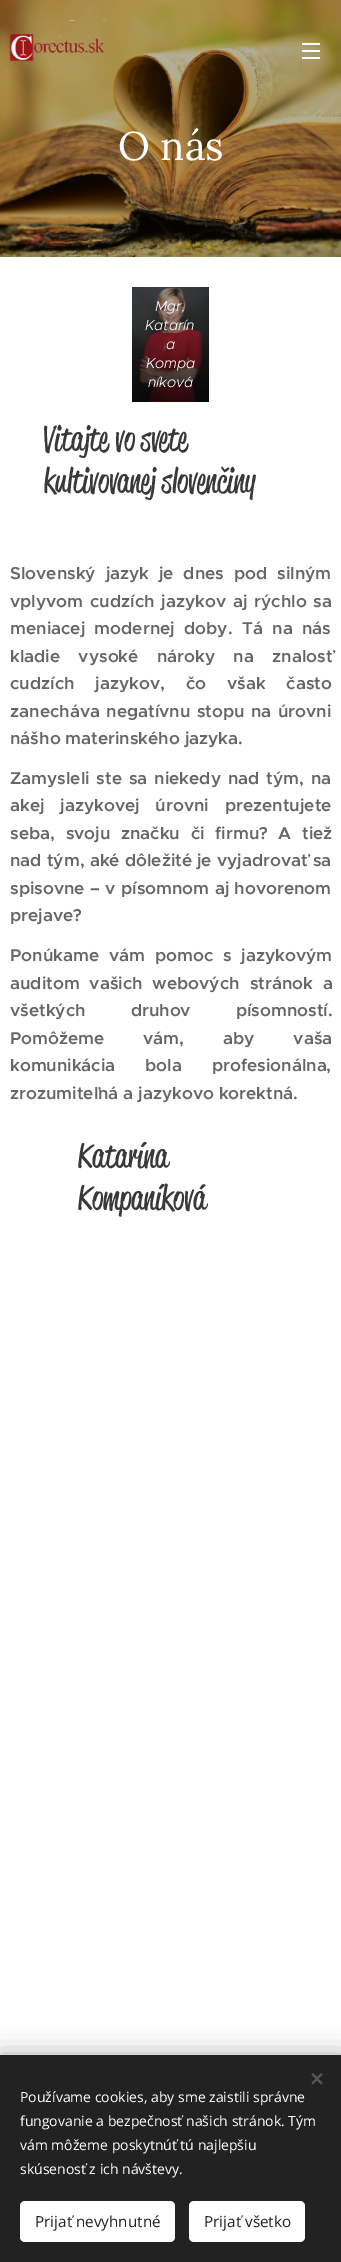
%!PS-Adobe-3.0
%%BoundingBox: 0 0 341 2262
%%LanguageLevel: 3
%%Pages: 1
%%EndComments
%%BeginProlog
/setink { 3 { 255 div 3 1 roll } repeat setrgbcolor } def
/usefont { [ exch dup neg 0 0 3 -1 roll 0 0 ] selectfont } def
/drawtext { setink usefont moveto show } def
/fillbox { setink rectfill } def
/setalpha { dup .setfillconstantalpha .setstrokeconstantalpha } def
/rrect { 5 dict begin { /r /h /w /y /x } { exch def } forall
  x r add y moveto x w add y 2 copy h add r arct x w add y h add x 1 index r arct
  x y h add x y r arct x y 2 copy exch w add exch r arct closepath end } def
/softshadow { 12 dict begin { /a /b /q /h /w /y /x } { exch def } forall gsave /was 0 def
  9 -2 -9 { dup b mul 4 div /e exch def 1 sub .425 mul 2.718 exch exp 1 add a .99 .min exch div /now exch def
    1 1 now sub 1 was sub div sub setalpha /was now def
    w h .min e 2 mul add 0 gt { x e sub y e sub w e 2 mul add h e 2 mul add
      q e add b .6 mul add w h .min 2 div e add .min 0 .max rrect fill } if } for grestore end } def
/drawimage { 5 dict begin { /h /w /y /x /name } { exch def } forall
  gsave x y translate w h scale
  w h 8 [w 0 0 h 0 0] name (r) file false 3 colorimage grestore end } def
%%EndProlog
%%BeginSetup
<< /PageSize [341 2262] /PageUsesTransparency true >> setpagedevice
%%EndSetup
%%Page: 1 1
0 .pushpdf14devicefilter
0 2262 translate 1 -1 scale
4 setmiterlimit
0 0 341 2262 255 255 255 fillbox
(assets/img2.rgb) 0 0 341 257 drawimage
(assets/img1.rgb) 6 20 100 57 drawimage
302 50 18 2 255 255 255 fillbox
302 43 18 2 255 255 255 fillbox
302 57 18 2 255 255 255 fillbox
(O nás) 118 160 /Lora-Regular 40 255 255 255 drawtext
(assets/img3.rgb) 132 287 77 115 drawimage
(Mgr.) 155 311 /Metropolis-LightItalic 14.5 255 255 255 drawtext
(Katarín) 145 330 /Metropolis-LightItalic 14.5 255 255 255 drawtext
(a) 166 349 /Metropolis-LightItalic 14.5 255 255 255 drawtext
(Kompa) 146 368 /Metropolis-LightItalic 14.5 255 255 255 drawtext
(níková) 148 387 /Metropolis-LightItalic 14.5 255 255 255 drawtext
(Vitajte vo svete) 44 450 /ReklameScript-Regular 34 57 57 57 drawtext
(kultivovanej slovenčiny) 44 492 /ReklameScript-Regular 34 57 57 57 drawtext
/Metropolis-SemiBold 17.25 usefont
102 102 102 setink
10 579 moveto 5 0 32 (Slovenský jazyk je dnes pod silným) widthshow
10 607 moveto 2 0 32 (vplyvom cudzích jazykov aj rýchlo sa) widthshow
10 634 moveto 4.5 0 32 (meniacej modernej doby. Tá na nás) widthshow
10 662 moveto 13.5 0 32 (kladie vysoké nároky na znalosť) widthshow
10 689 moveto 16 0 32 (cudzích jazykov, čo však často) widthshow
10 717 moveto 1.5 0 32 (zanecháva negatívnu stopu na úrovni) widthshow
(nášho materinského jazyka.) 10 744 /Metropolis-SemiBold 17.25 102 102 102 drawtext
10 784 moveto 2 0 32 (Zamysleli ste sa niekedy nad tým, na) widthshow
10 811 moveto 11 0 32 (akej jazykovej úrovni prezentujete) widthshow
10 839 moveto 5.75 0 32 (seba, svoju značku či firmu? A tiež) widthshow
10 866 moveto 0.25 0 32 (nad tým, aké dôležité je vyjadrovať sa) widthshow
10 894 moveto 0.5 0 32 (spisovne – v písomnom aj hovorenom) widthshow
(prejave?) 10 921 /Metropolis-SemiBold 17.25 102 102 102 drawtext
10 961 moveto 5 0 32 (Ponúkame vám pomoc s jazykovým) widthshow
10 989 moveto 5 0 32 (auditom vašich webových stránok a) widthshow
10 1016 moveto 40 0 32 (všetkých druhov písomností.) widthshow
10 1044 moveto 34 0 32 (Pomôžeme vám, aby vaša) widthshow
10 1071 moveto 25 0 32 (komunikácia bola profesionálna,) widthshow
(zrozumiteľná a jazykovo korektná.) 10 1099 /Metropolis-SemiBold 17.25 102 102 102 drawtext
(Katarína) 78 1167 /ReklameScript-Regular 34 57 57 57 drawtext
(Kompaníková) 78 1209 /ReklameScript-Regular 34 57 57 57 drawtext
0 0 0 setink
0 2055 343 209 0 12.5 0.33 softshadow
0 2055 341 207 34 34 34 fillbox
85 85 85 setink
311.5 2083 moveto 321 2073 lineto 322.5 2074.5 lineto 313 2084.5 lineto closepath fill
313 2073 moveto 322.5 2083 lineto 321 2084.5 lineto 311.5 2074.5 lineto closepath fill
(Používame cookies, aby sme zaistili správne) 20 2102 /OpenSans-Regular 14 255 255 255 drawtext
(fungovanie a bezpečnosť našich stránok. Tým) 20 2126 /OpenSans-Regular 14 255 255 255 drawtext
(vám môžeme poskytnúť tú najlepšiu) 20 2150 /OpenSans-Regular 14 255 255 255 drawtext
(skúsenosť z ich návštevy.) 20 2174 /OpenSans-Regular 14 255 255 255 drawtext
20 2201 155 41 5 rrect fill
(Prijať nevyhnutné) 35 2227 /OpenSans-Regular 15.25 34 34 34 drawtext
255 255 255 setink
189 2201 116 41 5 rrect fill
(Prijať všetko) 204 2227 /OpenSans-Regular 15.25 34 34 34 drawtext
.poppdf14devicefilter showpage
%%EOF
